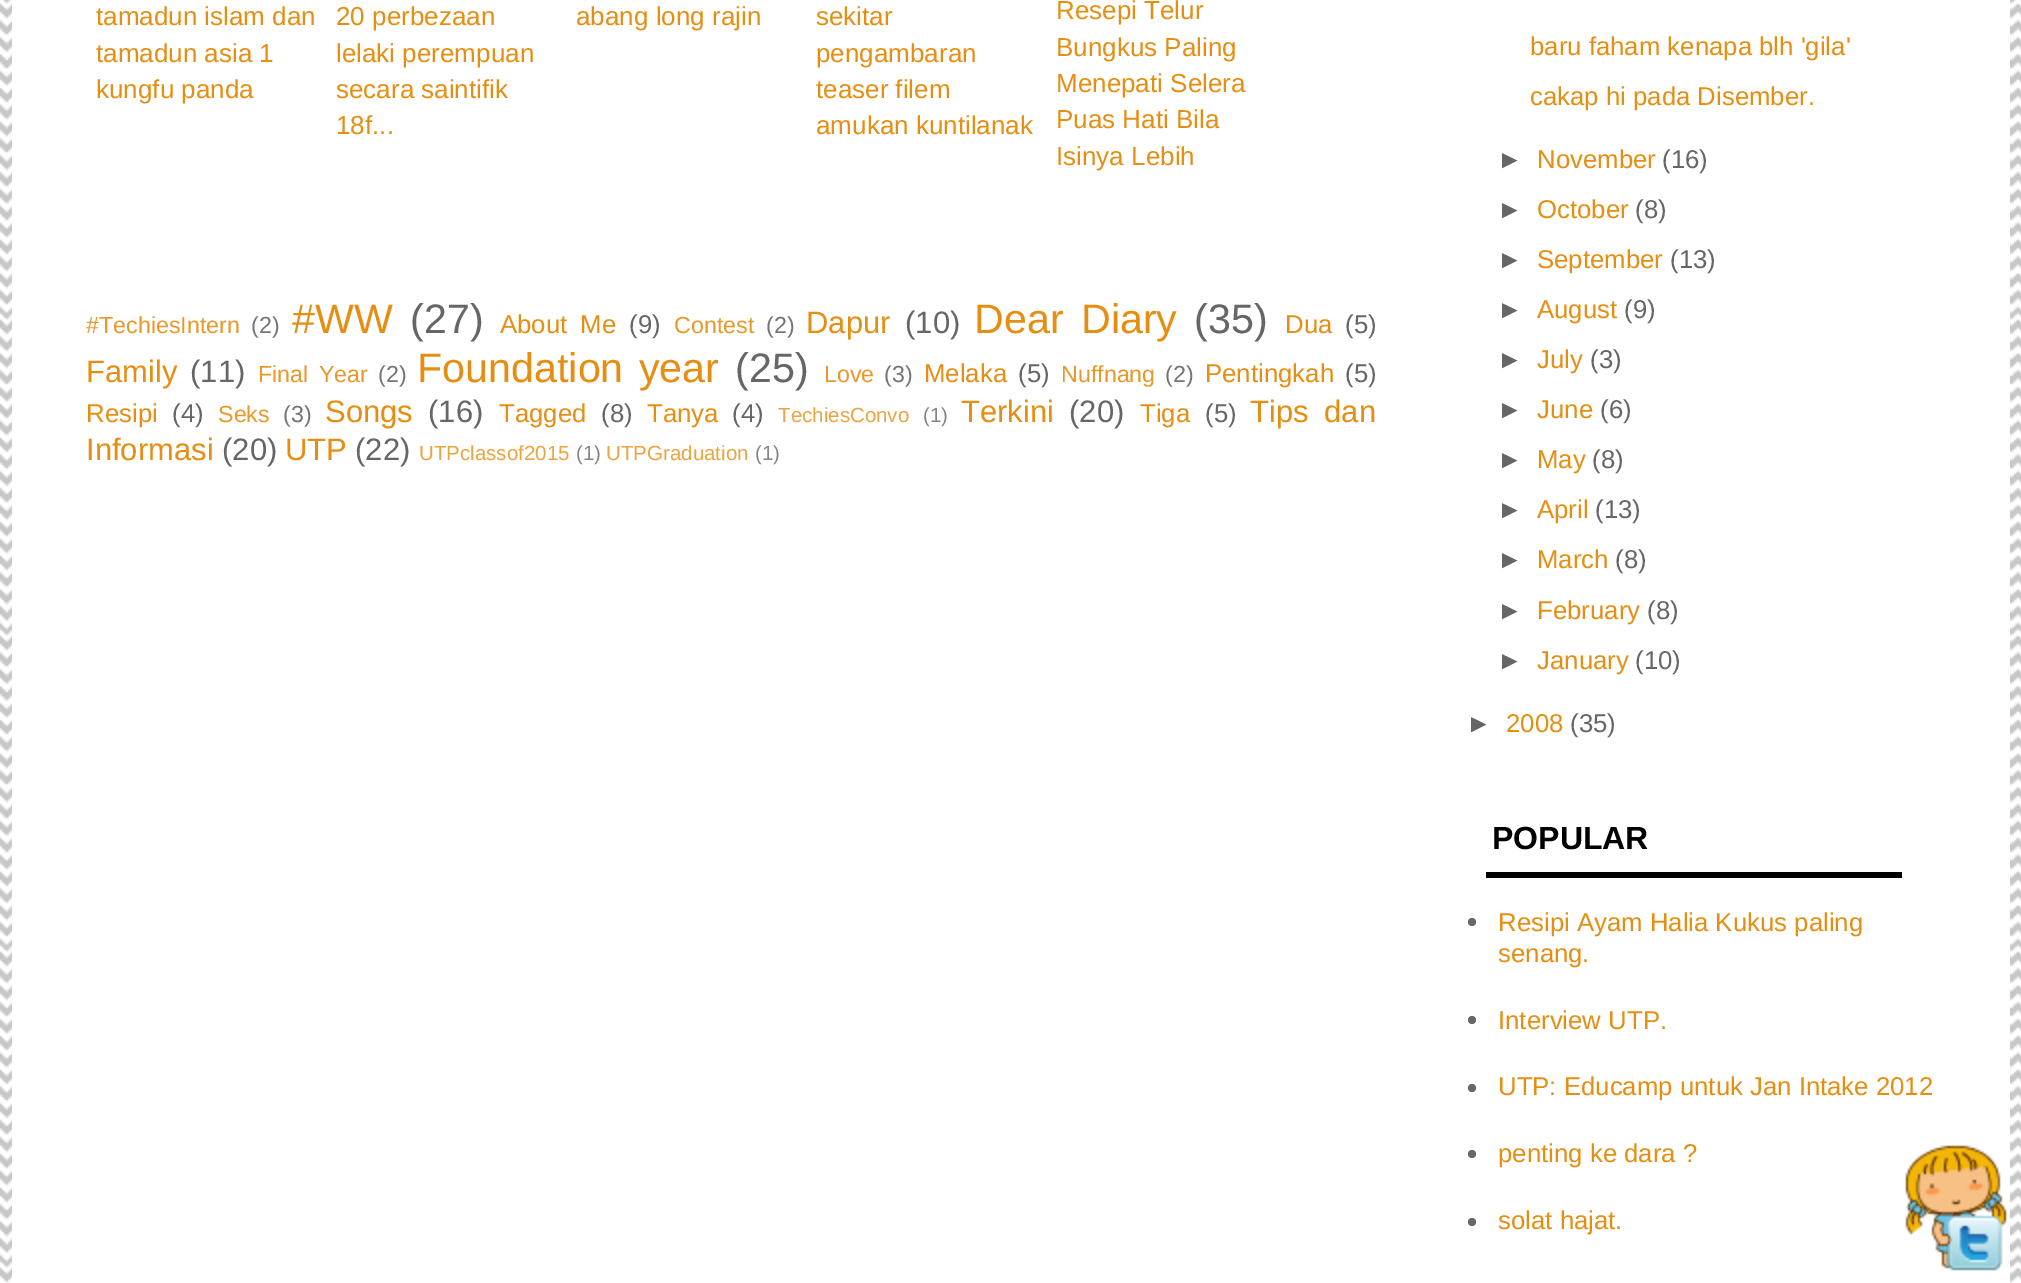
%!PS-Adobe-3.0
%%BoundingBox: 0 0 2021 1283
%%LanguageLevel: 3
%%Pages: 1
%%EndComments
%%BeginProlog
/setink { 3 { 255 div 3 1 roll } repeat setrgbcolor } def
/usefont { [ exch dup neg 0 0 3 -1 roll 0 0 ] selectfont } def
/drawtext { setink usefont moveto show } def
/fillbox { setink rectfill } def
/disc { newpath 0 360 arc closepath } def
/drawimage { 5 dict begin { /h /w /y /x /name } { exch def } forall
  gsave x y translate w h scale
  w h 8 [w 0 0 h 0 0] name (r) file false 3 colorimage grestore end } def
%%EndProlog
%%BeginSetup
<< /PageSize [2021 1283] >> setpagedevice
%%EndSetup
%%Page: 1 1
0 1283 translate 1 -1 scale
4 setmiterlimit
0 0 2021 1283 255 255 255 fillbox
(assets/img1.rgb) 0 0 2021 1283 drawimage
12 0 1998 1283 255 255 255 fillbox
(tamadun islam dan) 96 25 /LiberationSans-Regular 26 229 142 17 drawtext
(tamadun asia 1) 96 62 /LiberationSans-Regular 26 229 142 17 drawtext
(kungfu panda) 96 98 /LiberationSans-Regular 26 229 142 17 drawtext
(20 perbezaan) 336 25 /LiberationSans-Regular 26 229 142 17 drawtext
(lelaki perempuan) 336 62 /LiberationSans-Regular 26 229 142 17 drawtext
(secara saintifik) 336 98 /LiberationSans-Regular 26 229 142 17 drawtext
(18f...) 336 134 /LiberationSans-Regular 26 229 142 17 drawtext
(abang long rajin) 576 25 /LiberationSans-Regular 26 229 142 17 drawtext
(sekitar) 816 25 /LiberationSans-Regular 26 229 142 17 drawtext
(pengambaran) 816 62 /LiberationSans-Regular 26 229 142 17 drawtext
(teaser filem) 816 98 /LiberationSans-Regular 26 229 142 17 drawtext
(amukan kuntilanak) 816 134 /LiberationSans-Regular 26 229 142 17 drawtext
(Resepi Telur) 1056 19 /LiberationSans-Regular 26 229 142 17 drawtext
(Bungkus Paling) 1056 56 /LiberationSans-Regular 26 229 142 17 drawtext
(Menepati Selera) 1056 92 /LiberationSans-Regular 26 229 142 17 drawtext
(Puas Hati Bila) 1056 128 /LiberationSans-Regular 26 229 142 17 drawtext
(Isinya Lebih) 1056 165 /LiberationSans-Regular 26 229 142 17 drawtext
(#TechiesIntern) 86 333 /LiberationSans-Regular 23.25 232 153 41 drawtext
(\(2\)) 251 333 /LiberationSans-Regular 23.25 117 117 117 drawtext
(#WW) 292 333 /LiberationSans-Regular 41.25 229 142 17 drawtext
(\(27\)) 410 333 /LiberationSans-Regular 41.25 102 102 102 drawtext
/LiberationSans-Regular 25.75 usefont
229 142 17 setink
500 333 moveto 6 0 32 (About Me) widthshow
(\(9\)) 629 333 /LiberationSans-Regular 25.75 102 102 102 drawtext
(Contest) 674 333 /LiberationSans-Regular 23.25 232 153 41 drawtext
(\(2\)) 766 333 /LiberationSans-Regular 23.25 117 117 117 drawtext
(Dapur) 806 333 /LiberationSans-Regular 31 229 142 17 drawtext
(\(10\)) 905 333 /LiberationSans-Regular 31 102 102 102 drawtext
/LiberationSans-Regular 41.25 usefont
229 142 17 setink
974 333 moveto 6 0 32 (Dear Diary) widthshow
(\(35\)) 1194 333 /LiberationSans-Regular 41.25 102 102 102 drawtext
(Dua) 1285 333 /LiberationSans-Regular 25.75 229 142 17 drawtext
(\(5\)) 1345 333 /LiberationSans-Regular 25.75 102 102 102 drawtext
(Family) 86 382 /LiberationSans-Regular 31 229 142 17 drawtext
(\(11\)) 190 382 /LiberationSans-Regular 31 102 102 102 drawtext
/LiberationSans-Regular 23.25 usefont
232 153 41 setink
258 382 moveto 4 0 32 (Final Year) widthshow
(\(2\)) 378 382 /LiberationSans-Regular 23.25 117 117 117 drawtext
/LiberationSans-Regular 41.25 usefont
229 142 17 setink
417 382 moveto 4 0 32 (Foundation year) widthshow
(\(25\)) 735 382 /LiberationSans-Regular 41.25 102 102 102 drawtext
(Love) 824 382 /LiberationSans-Regular 23.25 232 153 41 drawtext
(\(3\)) 884 382 /LiberationSans-Regular 23.25 117 117 117 drawtext
(Melaka) 924 382 /LiberationSans-Regular 25.75 229 142 17 drawtext
(\(5\)) 1018 382 /LiberationSans-Regular 25.75 102 102 102 drawtext
(Nuffnang) 1061 382 /LiberationSans-Regular 23.25 232 153 41 drawtext
(\(2\)) 1165 382 /LiberationSans-Regular 23.25 117 117 117 drawtext
(Pentingkah) 1205 382 /LiberationSans-Regular 25.75 229 142 17 drawtext
(\(5\)) 1345 382 /LiberationSans-Regular 25.75 102 102 102 drawtext
(Resipi) 86 422 /LiberationSans-Regular 25.75 229 142 17 drawtext
(\(4\)) 172 422 /LiberationSans-Regular 25.75 102 102 102 drawtext
(Seks) 218 422 /LiberationSans-Regular 23.25 232 153 41 drawtext
(\(3\)) 283 422 /LiberationSans-Regular 23.25 117 117 117 drawtext
(Songs) 325 422 /LiberationSans-Regular 31 229 142 17 drawtext
(\(16\)) 428 422 /LiberationSans-Regular 31 102 102 102 drawtext
(Tagged) 499 422 /LiberationSans-Regular 25.75 229 142 17 drawtext
(\(8\)) 601 422 /LiberationSans-Regular 25.75 102 102 102 drawtext
(Tanya) 647 422 /LiberationSans-Regular 25.75 229 142 17 drawtext
(\(4\)) 732 422 /LiberationSans-Regular 25.75 102 102 102 drawtext
(TechiesConvo) 778 422 /LiberationSans-Regular 20.5 234 165 65 drawtext
(\(1\)) 923 422 /LiberationSans-Regular 20.5 133 133 133 drawtext
(Terkini) 961 422 /LiberationSans-Regular 31 229 142 17 drawtext
(\(20\)) 1069 422 /LiberationSans-Regular 31 102 102 102 drawtext
(Tiga) 1140 422 /LiberationSans-Regular 25.75 229 142 17 drawtext
(\(5\)) 1205 422 /LiberationSans-Regular 25.75 102 102 102 drawtext
/LiberationSans-Regular 31 usefont
229 142 17 setink
1250 422 moveto 7 0 32 (Tips dan) widthshow
(Informasi) 86 460 /LiberationSans-Regular 31 229 142 17 drawtext
(\(20\)) 222 460 /LiberationSans-Regular 31 102 102 102 drawtext
(UTP) 285 460 /LiberationSans-Regular 31 229 142 17 drawtext
(\(22\)) 355 460 /LiberationSans-Regular 31 102 102 102 drawtext
(UTPclassof2015) 419 460 /LiberationSans-Regular 20.5 234 165 65 drawtext
(\(1\)) 576 460 /LiberationSans-Regular 20.5 133 133 133 drawtext
(UTPGraduation) 606 460 /LiberationSans-Regular 20.5 234 165 65 drawtext
(\(1\)) 755 460 /LiberationSans-Regular 20.5 133 133 133 drawtext
(baru faham kenapa blh 'gila') 1530 55 /LiberationSans-Regular 25.75 229 142 17 drawtext
(cakap hi pada Disember.) 1530 105 /LiberationSans-Regular 25.75 229 142 17 drawtext
(►) 1497 168 /LiberationSans-Regular 25.75 102 102 102 drawtext
(November) 1537 168 /LiberationSans-Regular 25.75 229 142 17 drawtext
(\(16\)) 1662 168 /LiberationSans-Regular 25.75 102 102 102 drawtext
(►) 1497 218 /LiberationSans-Regular 25.75 102 102 102 drawtext
(October) 1537 218 /LiberationSans-Regular 25.75 229 142 17 drawtext
(\(8\)) 1635 218 /LiberationSans-Regular 25.75 102 102 102 drawtext
(►) 1497 268 /LiberationSans-Regular 25.75 102 102 102 drawtext
(September) 1537 268 /LiberationSans-Regular 25.75 229 142 17 drawtext
(\(13\)) 1670 268 /LiberationSans-Regular 25.75 102 102 102 drawtext
(►) 1497 318 /LiberationSans-Regular 25.75 102 102 102 drawtext
(August) 1537 318 /LiberationSans-Regular 25.75 229 142 17 drawtext
(\(9\)) 1624 318 /LiberationSans-Regular 25.75 102 102 102 drawtext
(►) 1497 368 /LiberationSans-Regular 25.75 102 102 102 drawtext
(July) 1537 368 /LiberationSans-Regular 25.75 229 142 17 drawtext
(\(3\)) 1590 368 /LiberationSans-Regular 25.75 102 102 102 drawtext
(►) 1497 418 /LiberationSans-Regular 25.75 102 102 102 drawtext
(June) 1537 418 /LiberationSans-Regular 25.75 229 142 17 drawtext
(\(6\)) 1600 418 /LiberationSans-Regular 25.75 102 102 102 drawtext
(►) 1497 468 /LiberationSans-Regular 25.75 102 102 102 drawtext
(May) 1537 468 /LiberationSans-Regular 25.75 229 142 17 drawtext
(\(8\)) 1592 468 /LiberationSans-Regular 25.75 102 102 102 drawtext
(►) 1497 518 /LiberationSans-Regular 25.75 102 102 102 drawtext
(April) 1537 518 /LiberationSans-Regular 25.75 229 142 17 drawtext
(\(13\)) 1595 518 /LiberationSans-Regular 25.75 102 102 102 drawtext
(►) 1497 568 /LiberationSans-Regular 25.75 102 102 102 drawtext
(March) 1537 568 /LiberationSans-Regular 25.75 229 142 17 drawtext
(\(8\)) 1615 568 /LiberationSans-Regular 25.75 102 102 102 drawtext
(►) 1497 619 /LiberationSans-Regular 25.75 102 102 102 drawtext
(February) 1537 619 /LiberationSans-Regular 25.75 229 142 17 drawtext
(\(8\)) 1647 619 /LiberationSans-Regular 25.75 102 102 102 drawtext
(►) 1497 669 /LiberationSans-Regular 25.75 102 102 102 drawtext
(January) 1537 669 /LiberationSans-Regular 25.75 229 142 17 drawtext
(\(10\)) 1635 669 /LiberationSans-Regular 25.75 102 102 102 drawtext
(►) 1466 732 /LiberationSans-Regular 25.75 102 102 102 drawtext
(2008) 1506 732 /LiberationSans-Regular 25.75 229 142 17 drawtext
(\(35\)) 1570 732 /LiberationSans-Regular 25.75 102 102 102 drawtext
1486 872 416 6 0 0 0 fillbox
(POPULAR) 1492 849 /LiberationSans-Bold 32 0 0 0 drawtext
102 102 102 setink
1472 922 4 disc fill
(Resipi Ayam Halia Kukus paling) 1498 931 /LiberationSans-Regular 25.75 229 142 17 drawtext
(senang.) 1498 962 /LiberationSans-Regular 25.75 229 142 17 drawtext
102 102 102 setink
1472 1020 4 disc fill
(Interview UTP.) 1498 1029 /LiberationSans-Regular 25.75 229 142 17 drawtext
102 102 102 setink
1472 1088 4 disc fill
(UTP: Educamp untuk Jan Intake 2012) 1498 1095 /LiberationSans-Regular 25.75 229 142 17 drawtext
102 102 102 setink
1472 1154 4 disc fill
(penting ke dara ?) 1498 1162 /LiberationSans-Regular 25.75 229 142 17 drawtext
102 102 102 setink
1472 1222 4 disc fill
(solat hajat.) 1498 1229 /LiberationSans-Regular 25.75 229 142 17 drawtext
(assets/img2.rgb) 1905 1145 102 126 drawimage
showpage
%%EOF
